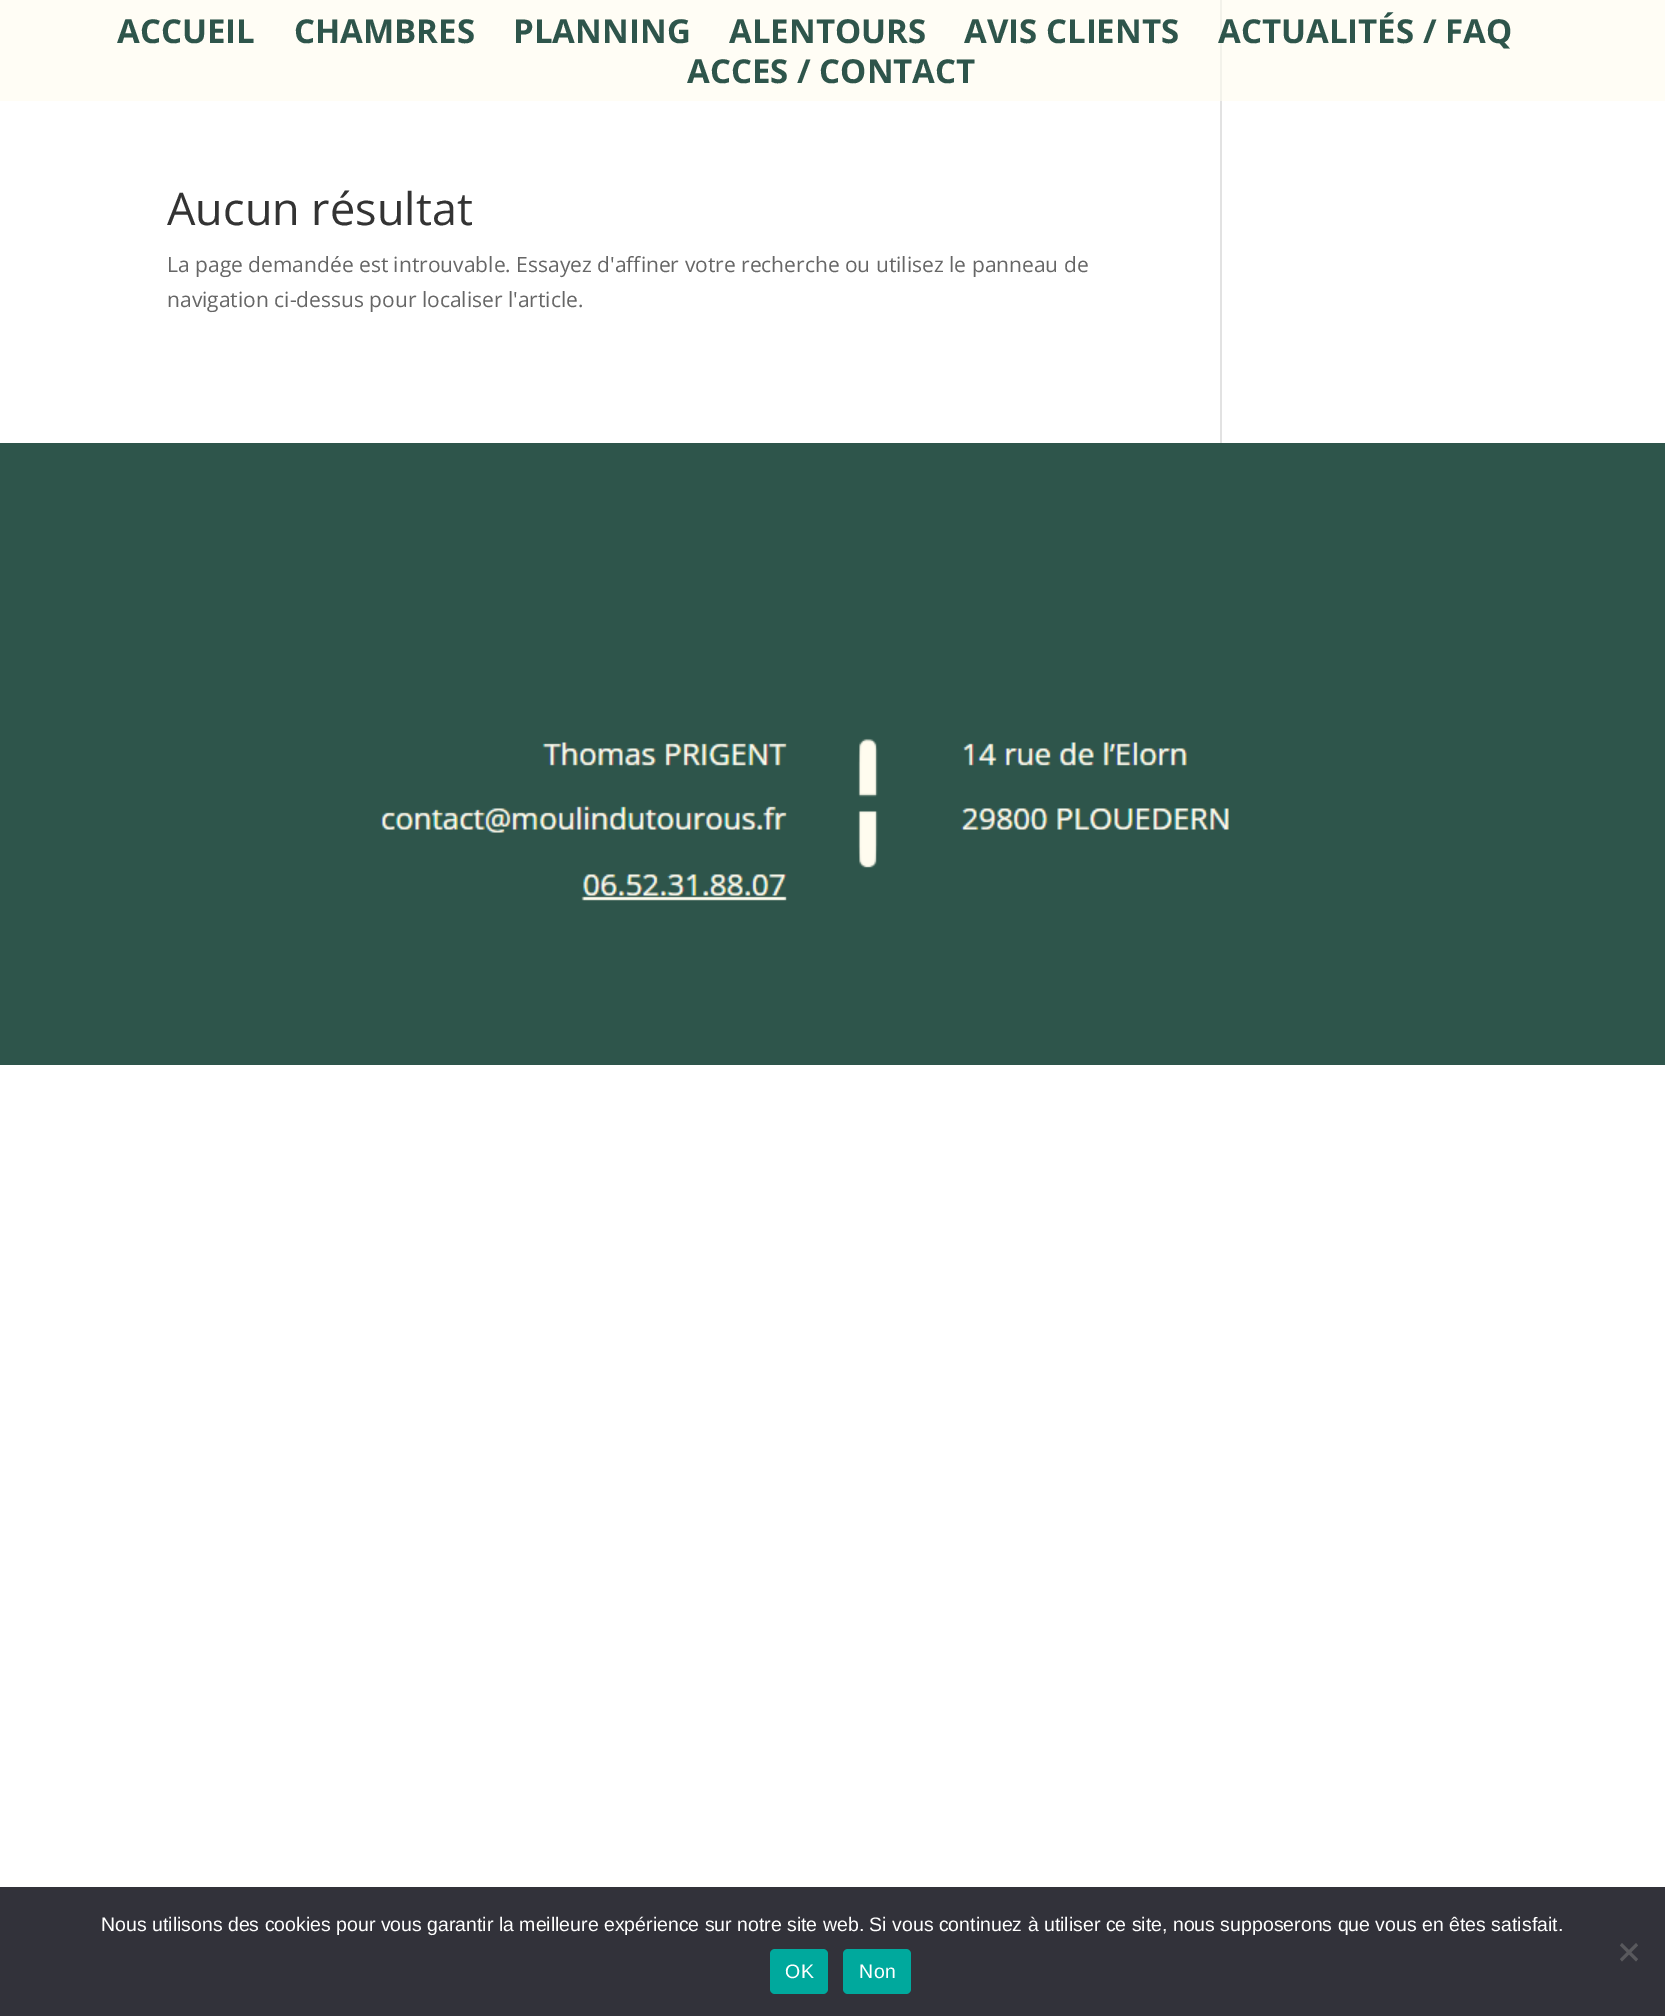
%!PS-Adobe-3.0
%%BoundingBox: 0 0 1665 2016
%%LanguageLevel: 3
%%Pages: 1
%%EndComments
%%BeginProlog
/setink { 3 { 255 div 3 1 roll } repeat setrgbcolor } def
/usefont { [ exch dup neg 0 0 3 -1 roll 0 0 ] selectfont } def
/drawtext { setink usefont moveto show } def
/fillbox { setink rectfill } def
/rrect { 5 dict begin { /r /h /w /y /x } { exch def } forall
  x r add y moveto x w add y 2 copy h add r arct x w add y h add x 1 index r arct
  x y h add x y r arct x y 2 copy exch w add exch r arct closepath end } def
/drawimage { 5 dict begin { /h /w /y /x /name } { exch def } forall
  gsave x y translate w h scale
  w h 8 [w 0 0 h 0 0] name (r) file false 3 colorimage grestore end } def
%%EndProlog
%%BeginSetup
<< /PageSize [1665 2016] >> setpagedevice
%%EndSetup
%%Page: 1 1
0 2016 translate 1 -1 scale
4 setmiterlimit
0 0 1665 2016 255 255 255 fillbox
0 0 1665 101 255 253 245 fillbox
(ACCUEIL) 117 43 /OpenSans-Bold 33 46 85 75 drawtext
(CHAMBRES) 294 43 /OpenSans-Bold 33 46 85 75 drawtext
(PLANNING) 513 43 /OpenSans-Bold 33 46 85 75 drawtext
(ALENTOURS) 729 43 /OpenSans-Bold 33 46 85 75 drawtext
(AVIS CLIENTS) 964 43 /OpenSans-Bold 33 46 85 75 drawtext
1220 0 2 101 243 242 234 fillbox
(ACTUALITÉS / FAQ) 1218 43 /OpenSans-Bold 33 46 85 75 drawtext
(ACCES / CONTACT) 687 83 /OpenSans-Bold 33 46 85 75 drawtext
(Aucun résultat) 167 225 /OpenSans-Regular 45 51 51 51 drawtext
(La page demandée est introuvable. Essayez d'affiner votre recherche ou utilisez le panneau de) 167 272 /OpenSans-Regular 21 102 102 102 drawtext
(navigation ci-dessus pour localiser l'article.) 167 307 /OpenSans-Regular 21 102 102 102 drawtext
1220 101 2 342 226 226 226 fillbox
0 443 1665 622 46 85 75 fillbox
(assets/img1.rgb) 380 738 849 163 drawimage
0 1887 1665 129 50 50 58 fillbox
(Nous utilisons des cookies pour vous garantir la meilleure expérience sur notre site web. Si vous continuez à utiliser ce site, nous supposerons que vous en êtes satisfait.) 101 1931 /LiberationSans-Regular 19.5 255 255 255 drawtext
89 89 93 setink
1636 1943 moveto 1638 1945.5 lineto 1622 1961.5 lineto 1620 1959 lineto closepath fill
1620 1945.5 moveto 1622 1943 lineto 1638 1959 lineto 1636 1961.5 lineto closepath fill
0 169 157 setink
770 1949 58 45 5 rrect fill
255 255 255 setink
785 1978 moveto 0.5 0 (OK) ashow
0 169 157 setink
843 1949 68 45 5 rrect fill
255 255 255 setink
859 1978 moveto 0.5 0 (Non) ashow
showpage
%%EOF
